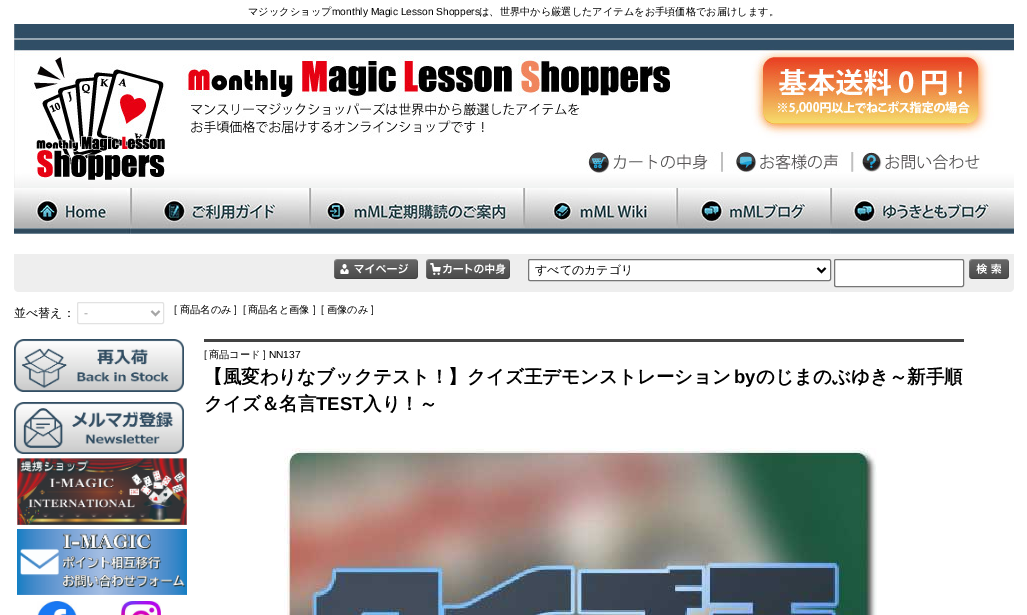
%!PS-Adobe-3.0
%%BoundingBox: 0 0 1027 615
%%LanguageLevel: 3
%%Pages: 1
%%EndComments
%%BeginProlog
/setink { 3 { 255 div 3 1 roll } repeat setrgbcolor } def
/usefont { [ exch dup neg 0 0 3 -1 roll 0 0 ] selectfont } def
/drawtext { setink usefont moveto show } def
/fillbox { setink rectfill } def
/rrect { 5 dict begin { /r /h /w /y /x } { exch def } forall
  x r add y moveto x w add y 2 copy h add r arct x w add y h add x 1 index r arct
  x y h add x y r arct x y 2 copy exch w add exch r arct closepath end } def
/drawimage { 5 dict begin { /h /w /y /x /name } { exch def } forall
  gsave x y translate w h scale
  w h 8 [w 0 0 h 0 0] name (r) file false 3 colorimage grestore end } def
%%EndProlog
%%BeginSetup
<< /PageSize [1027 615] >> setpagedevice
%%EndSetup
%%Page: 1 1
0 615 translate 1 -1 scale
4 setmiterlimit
0 0 1027 615 255 255 255 fillbox
(マジックショップ) 248 15 /WenQuanYiZenHei-Medium 10.2 0 0 0 drawtext
(monthly Magic Lesson Shoppers) 332 15 /LiberationSans-Regular 10.2 0 0 0 drawtext
(は、世界中から厳選したアイテムをお手頃価格でお届けします。) 479 15 /WenQuanYiZenHei-Medium 10.2 0 0 0 drawtext
(assets/img1.rgb) 14 24 1000 116 drawimage
(assets/img2.rgb) 14 140 564 48 drawimage
(assets/img3.rgb) 578 148 144 40 drawimage
(assets/img4.rgb) 722 149 130 39 drawimage
(assets/img5.rgb) 852 148 162 40 drawimage
(assets/img6.rgb) 14 188 117 46 drawimage
(assets/img7.rgb) 131 188 179 46 drawimage
(assets/img8.rgb) 310 188 214 46 drawimage
(assets/img9.rgb) 524 188 153 46 drawimage
(assets/img10.rgb) 677 188 154 46 drawimage
(assets/img11.rgb) 831 188 183 46 drawimage
238 238 238 setink
14 254 moveto 1014 254 lineto 1014 287 lineto 1014 290 1012 292 1009 292 curveto 19 292 lineto 16 292 14 290 14 287 curveto closepath fill
(assets/img12.rgb) 334 259 84 20 drawimage
(assets/img13.rgb) 426 259 84 20 drawimage
255 255 255 setink
528.5 259.5 302 21 1.5 rrect gsave fill grestore
118 118 118 setink
stroke
0 0 0 setink
2 setlinewidth
817.5 268 moveto 821.5 272 lineto 825.5 268 lineto stroke
(すべてのカテゴリ) 535 274 /WenQuanYiZenHei-Medium 12 0 0 0 drawtext
255 255 255 setink
834.5 259.5 129 27 1.5 rrect gsave fill grestore
118 118 118 setink
1 setlinewidth
stroke
(assets/img14.rgb) 969 259 40 20 drawimage
(並べ替え：) 14 317 /WenQuanYiZenHei-Medium 12 0 0 0 drawtext
226 226 226 setink
77.5 302.5 86 21 1.5 rrect stroke
166 166 166 setink
2 setlinewidth
151.5 311 moveto 155.5 315 lineto 159.5 311 lineto stroke
(-) 84 317 /LiberationSans-Regular 12 166 166 166 drawtext
([) 174 313 /LiberationSans-Regular 10.2 0 0 0 drawtext
(商品名のみ) 180 313 /WenQuanYiZenHei-Medium 10.2 0 0 0 drawtext
(]) 234 313 /LiberationSans-Regular 10.2 0 0 0 drawtext
([) 243 313 /LiberationSans-Regular 10.2 0 0 0 drawtext
(商品名と画像) 248 313 /WenQuanYiZenHei-Medium 10.2 0 0 0 drawtext
(]) 313 313 /LiberationSans-Regular 10.2 0 0 0 drawtext
([) 321 313 /LiberationSans-Regular 10.2 0 0 0 drawtext
(画像のみ) 327 313 /WenQuanYiZenHei-Medium 10.2 0 0 0 drawtext
(]) 371 313 /LiberationSans-Regular 10.2 0 0 0 drawtext
(assets/img15.rgb) 14 339 170 53 drawimage
(assets/img16.rgb) 14 402 170 52 drawimage
(assets/img17.rgb) 17 458 170 67 drawimage
(assets/img18.rgb) 17 529 170 66 drawimage
(assets/img19.rgb) 37 601 40 14 drawimage
(assets/img20.rgb) 121 601 40 14 drawimage
204 339 760 3 67 67 67 fillbox
([) 204 358 /LiberationSans-Regular 10.2 0 0 0 drawtext
(商品コード) 209 358 /WenQuanYiZenHei-Medium 10.2 0 0 0 drawtext
(] NN137) 263 358 /LiberationSans-Regular 10.2 0 0 0 drawtext
(【風変わりなブックテスト！】クイズ王デモンストレーション) 204 383 /WenQuanYiZenHei-Bold 18.5 0 0 0 drawtext
(by) 734 383 /LiberationSans-Bold 18.5 0 0 0 drawtext
(のじまのぶゆき～新手順) 756 383 /WenQuanYiZenHei-Bold 18.5 0 0 0 drawtext
(クイズ＆名言) 204 410 /WenQuanYiZenHei-Bold 18.5 0 0 0 drawtext
(TEST) 316 410 /LiberationSans-Bold 18.5 0 0 0 drawtext
(入り！～) 363 410 /WenQuanYiZenHei-Bold 18.5 0 0 0 drawtext
(assets/img21.rgb) 284 448 593 167 drawimage
showpage
%%EOF
